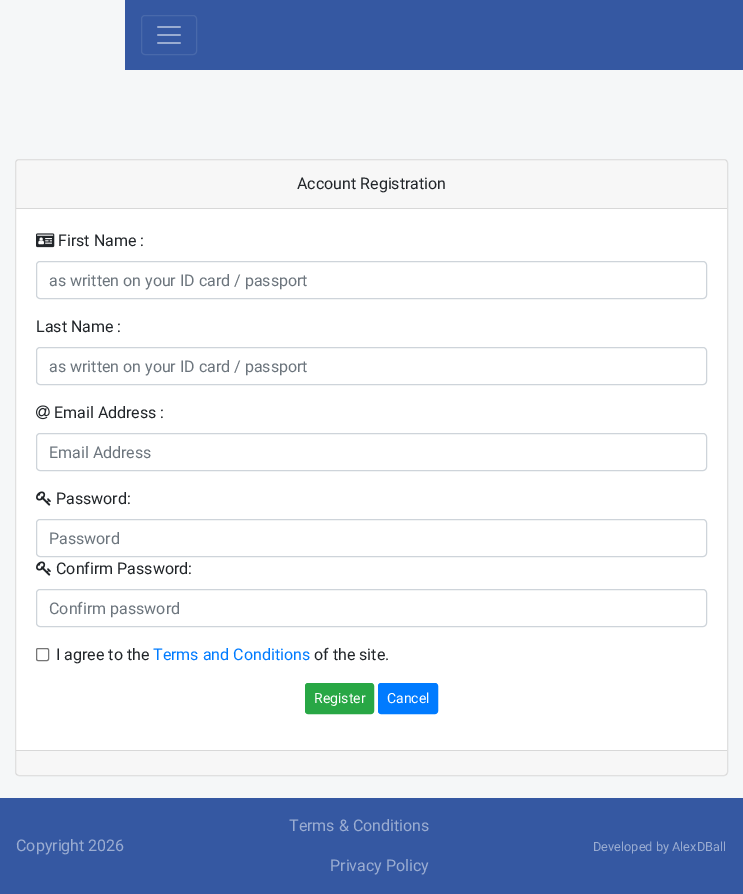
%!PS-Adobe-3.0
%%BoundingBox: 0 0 743 894
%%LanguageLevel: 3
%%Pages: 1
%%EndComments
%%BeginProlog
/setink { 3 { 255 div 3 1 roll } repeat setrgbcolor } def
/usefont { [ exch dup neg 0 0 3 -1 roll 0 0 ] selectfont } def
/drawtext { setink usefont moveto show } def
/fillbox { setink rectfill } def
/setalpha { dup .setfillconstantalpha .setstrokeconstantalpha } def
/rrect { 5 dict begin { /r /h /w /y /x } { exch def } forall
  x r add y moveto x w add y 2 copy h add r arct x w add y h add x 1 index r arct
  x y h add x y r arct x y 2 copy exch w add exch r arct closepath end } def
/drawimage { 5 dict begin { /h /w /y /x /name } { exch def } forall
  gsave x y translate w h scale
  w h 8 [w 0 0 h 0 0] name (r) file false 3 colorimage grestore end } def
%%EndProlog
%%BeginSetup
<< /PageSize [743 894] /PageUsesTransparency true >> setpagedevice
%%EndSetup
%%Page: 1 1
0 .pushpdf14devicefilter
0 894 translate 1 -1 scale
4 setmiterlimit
0 0 743 894 245 247 248 fillbox
125 0 618 70 53 88 162 fillbox
73 105 171 setink
141.5 15.5 55 39 3.5 rrect stroke
(assets/img1.rgb) 157 26 24 18 drawimage
255 255 255 setink
15 159 713 617 4 rrect fill
0.12 setalpha
0 0 0 setink
15.5 159.5 712 616 3.5 rrect stroke
0.03 setalpha
16 160 711 48 0 0 0 fillbox
1 setalpha
16 208 711 1 216 216 216 fillbox
(Account Registration) 297 189 /Roboto-Regular 16 33 37 41 drawtext
(assets/img2.rgb) 36 233 19 15 drawimage
(First Name :) 58 246 /Roboto-Regular 16 33 37 41 drawtext
206 212 218 setink
36.5 261.5 670 37 3.5 rrect stroke
(as written on your ID card / passport) 49 286 /Roboto-Regular 16 108 117 125 drawtext
(Last Name :) 36 332 /Roboto-Regular 16 33 37 41 drawtext
206 212 218 setink
36.5 347.5 670 37 3.5 rrect stroke
(as written on your ID card / passport) 49 372 /Roboto-Regular 16 108 117 125 drawtext
(assets/img3.rgb) 36 405 14 15 drawimage
(Email Address :) 54 418 /Roboto-Regular 16 33 37 41 drawtext
206 212 218 setink
36.5 433.5 670 37 3.5 rrect stroke
(Email Address) 49 458 /Roboto-Regular 16 108 117 125 drawtext
(assets/img4.rgb) 36 491 15 15 drawimage
(Password:) 56 504 /Roboto-Regular 16 33 37 41 drawtext
206 212 218 setink
36.5 519.5 670 37 3.5 rrect stroke
(Password) 49 544 /Roboto-Regular 16 108 117 125 drawtext
(assets/img4.rgb) 36 561 15 15 drawimage
(Confirm Password:) 56 574 /Roboto-Regular 16 33 37 41 drawtext
206 212 218 setink
36.5 589.5 670 37 3.5 rrect stroke
(Confirm password) 49 614 /Roboto-Regular 16 108 117 125 drawtext
118 118 118 setink
36.5 648.5 12 12 1.5 rrect stroke
(I agree to the) 56 660 /Roboto-Regular 16 33 37 41 drawtext
(Terms and Conditions) 153 660 /Roboto-Regular 16 0 123 255 drawtext
(of the site.) 314 660 /Roboto-Regular 16 33 37 41 drawtext
40 167 69 setink
305.5 683.5 68 30 2.5 rrect gsave fill grestore
stroke
(Register) 314 703 /Roboto-Regular 14 255 255 255 drawtext
0 123 255 setink
378.5 683.5 59 30 2.5 rrect gsave fill grestore
stroke
(Cancel) 387 703 /Roboto-Regular 14 255 255 255 drawtext
0.03 setalpha
16 751 711 24 0 0 0 fillbox
1 setalpha
16 750 711 1 216 216 216 fillbox
0 798 743 96 53 88 162 fillbox
(Copyright 2026) 16 851 /Roboto-Regular 16 154 172 209 drawtext
(Terms & Conditions) 289 831 /Roboto-Regular 16 154 172 209 drawtext
(Privacy Policy) 330 871 /Roboto-Regular 16 154 172 209 drawtext
(Developed by AlexDBall) 593 851 /Roboto-Regular 12.75 154 172 209 drawtext
.poppdf14devicefilter showpage
%%EOF
